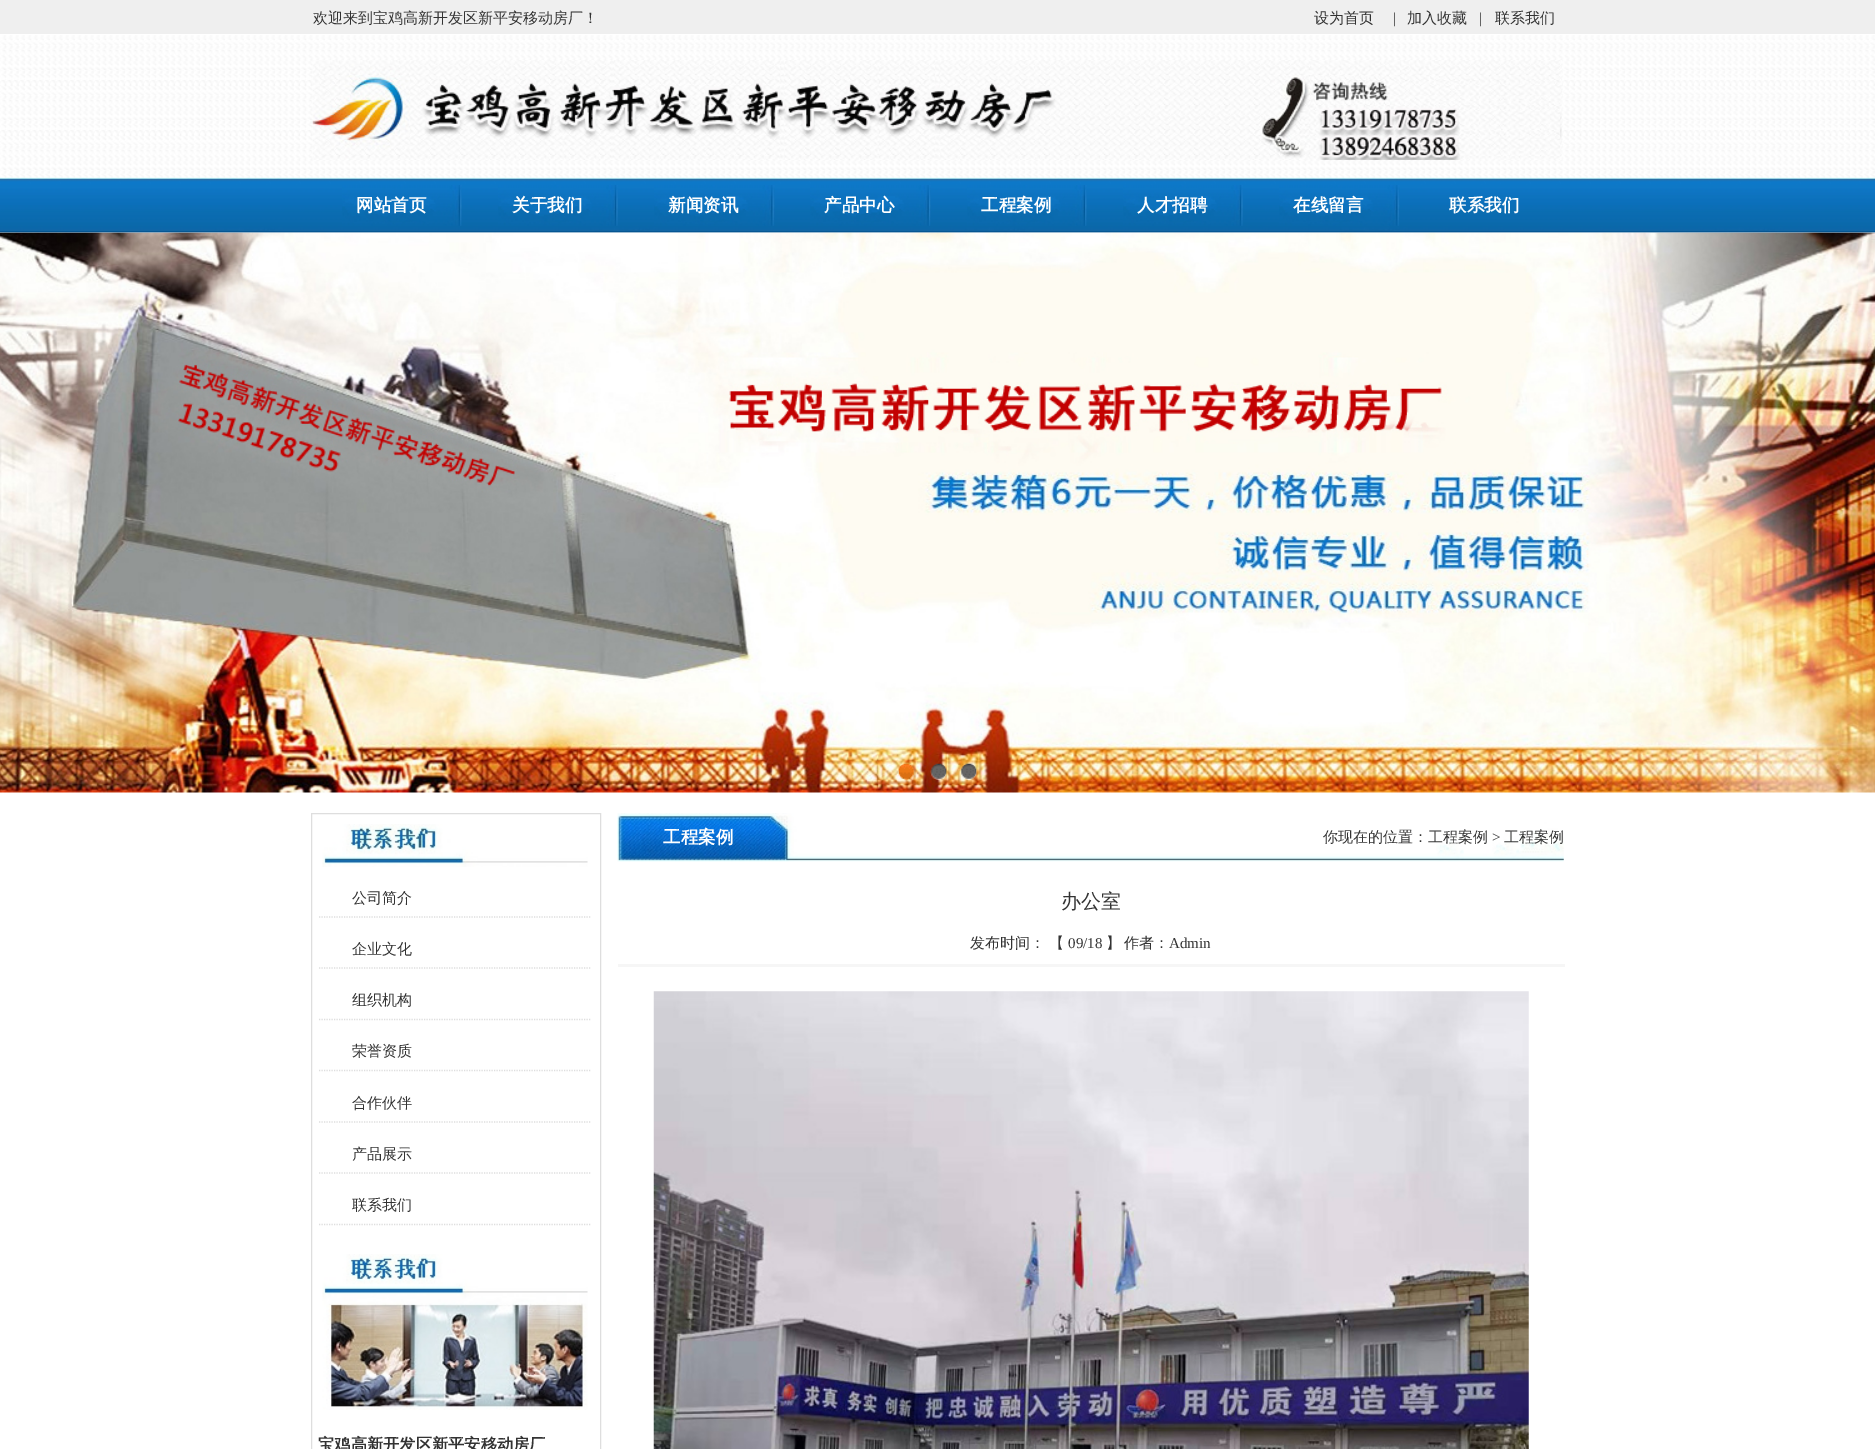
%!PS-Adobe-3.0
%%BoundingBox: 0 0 1875 1449
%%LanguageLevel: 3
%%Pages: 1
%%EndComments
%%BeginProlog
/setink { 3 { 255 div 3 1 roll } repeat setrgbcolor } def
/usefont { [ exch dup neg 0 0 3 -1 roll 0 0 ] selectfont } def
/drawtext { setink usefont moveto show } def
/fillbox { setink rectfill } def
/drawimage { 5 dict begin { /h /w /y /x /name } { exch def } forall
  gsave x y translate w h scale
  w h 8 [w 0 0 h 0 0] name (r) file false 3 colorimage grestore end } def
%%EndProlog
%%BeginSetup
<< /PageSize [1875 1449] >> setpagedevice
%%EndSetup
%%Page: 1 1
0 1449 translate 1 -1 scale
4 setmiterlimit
0 0 1875 1449 255 255 255 fillbox
0 0 1875 34 239 239 239 fillbox
(欢迎来到宝鸡高新开发区新平安移动房厂！) 313 23 /WenQuanYiZenHei-Medium 15 51 51 51 drawtext
(设为首页) 1314 23 /WenQuanYiZenHei-Medium 15 51 51 51 drawtext
(|) 1393 23 /LiberationSerif-Regular 15 51 51 51 drawtext
(加入收藏) 1407 23 /WenQuanYiZenHei-Medium 15 51 51 51 drawtext
(|) 1479 23 /LiberationSerif-Regular 15 51 51 51 drawtext
(联系我们) 1495 23 /WenQuanYiZenHei-Medium 15 51 51 51 drawtext
(assets/img3.rgb) 0 177 1875 56 drawimage
(assets/img1.rgb) 0 35 1875 143 drawimage
(assets/img2.rgb) 312 60 1250 100 drawimage
(assets/img4.rgb) 342 185 120 41 drawimage
(网站首页) 356 211 /WenQuanYiZenHei-Bold 17.5 255 255 255 drawtext
(assets/img5.rgb) 498 185 120 41 drawimage
(关于我们) 512 211 /WenQuanYiZenHei-Bold 17.5 255 255 255 drawtext
(assets/img6.rgb) 654 185 121 41 drawimage
(新闻资讯) 668 211 /WenQuanYiZenHei-Bold 17.5 255 255 255 drawtext
(assets/img7.rgb) 810 185 121 41 drawimage
(产品中心) 824 211 /WenQuanYiZenHei-Bold 17.5 255 255 255 drawtext
(assets/img8.rgb) 967 185 120 41 drawimage
(工程案例) 981 211 /WenQuanYiZenHei-Bold 17.5 255 255 255 drawtext
(assets/img9.rgb) 1123 185 120 41 drawimage
(人才招聘) 1137 211 /WenQuanYiZenHei-Bold 17.5 255 255 255 drawtext
(assets/img10.rgb) 1279 185 121 41 drawimage
(在线留言) 1293 211 /WenQuanYiZenHei-Bold 17.5 255 255 255 drawtext
(联系我们) 1449 211 /WenQuanYiZenHei-Bold 17.5 255 255 255 drawtext
(assets/img11.rgb) 0 232 1875 561 drawimage
222 222 222 setink
311.5 813.5 289 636 rectstroke
(assets/img12.rgb) 322 824 266 43 drawimage
1.2 setlinewidth
[1.25 1.25] 0 setdash
319 917 moveto 591 917 lineto stroke
(公司简介) 352 903 /WenQuanYiZenHei-Medium 15 51 51 51 drawtext
222 222 222 setink
319 968 moveto 591 968 lineto stroke
(企业文化) 352 954 /WenQuanYiZenHei-Medium 15 51 51 51 drawtext
222 222 222 setink
319 1019.5 moveto 591 1019.5 lineto stroke
(组织机构) 352 1005 /WenQuanYiZenHei-Medium 15 51 51 51 drawtext
222 222 222 setink
319 1070.5 moveto 591 1070.5 lineto stroke
(荣誉资质) 352 1056 /WenQuanYiZenHei-Medium 15 51 51 51 drawtext
222 222 222 setink
319 1122 moveto 591 1122 lineto stroke
(合作伙伴) 352 1108 /WenQuanYiZenHei-Medium 15 51 51 51 drawtext
222 222 222 setink
319 1173 moveto 591 1173 lineto stroke
(产品展示) 352 1159 /WenQuanYiZenHei-Medium 15 51 51 51 drawtext
222 222 222 setink
319 1224.5 moveto 591 1224.5 lineto stroke
(联系我们) 352 1210 /WenQuanYiZenHei-Medium 15 51 51 51 drawtext
(assets/img13.rgb) 322 1254 266 156 drawimage
(宝鸡高新开发区新平安移动房厂) 318 1450 /WenQuanYiZenHei-Bold 16.25 51 51 51 drawtext
(assets/img14.rgb) 617 813 947 49 drawimage
(工程案例) 663 843 /WenQuanYiZenHei-Bold 17.5 255 255 255 drawtext
(你现在的位置：工程案例) 1323 842 /WenQuanYiZenHei-Medium 15 51 51 51 drawtext
(>) 1492 842 /LiberationSerif-Regular 15 51 51 51 drawtext
(工程案例) 1504 842 /WenQuanYiZenHei-Medium 15 51 51 51 drawtext
(办公室) 1061 908 /WenQuanYiZenHei-Medium 20 51 51 51 drawtext
(发布时间：) 970 948 /WenQuanYiZenHei-Medium 15 51 51 51 drawtext
(【) 1049 948 /WenQuanYiZenHei-Medium 15 51 51 51 drawtext
(09/18) 1068 948 /LiberationSerif-Regular 15 51 51 51 drawtext
(】) 1106 948 /WenQuanYiZenHei-Medium 15 51 51 51 drawtext
(作者：) 1124 948 /WenQuanYiZenHei-Medium 15 51 51 51 drawtext
(Admin) 1169 948 /LiberationSerif-Regular 15 51 51 51 drawtext
618 964 947 3 246 246 246 fillbox
(assets/img15.rgb) 653 991 876 458 drawimage
showpage
%%EOF
